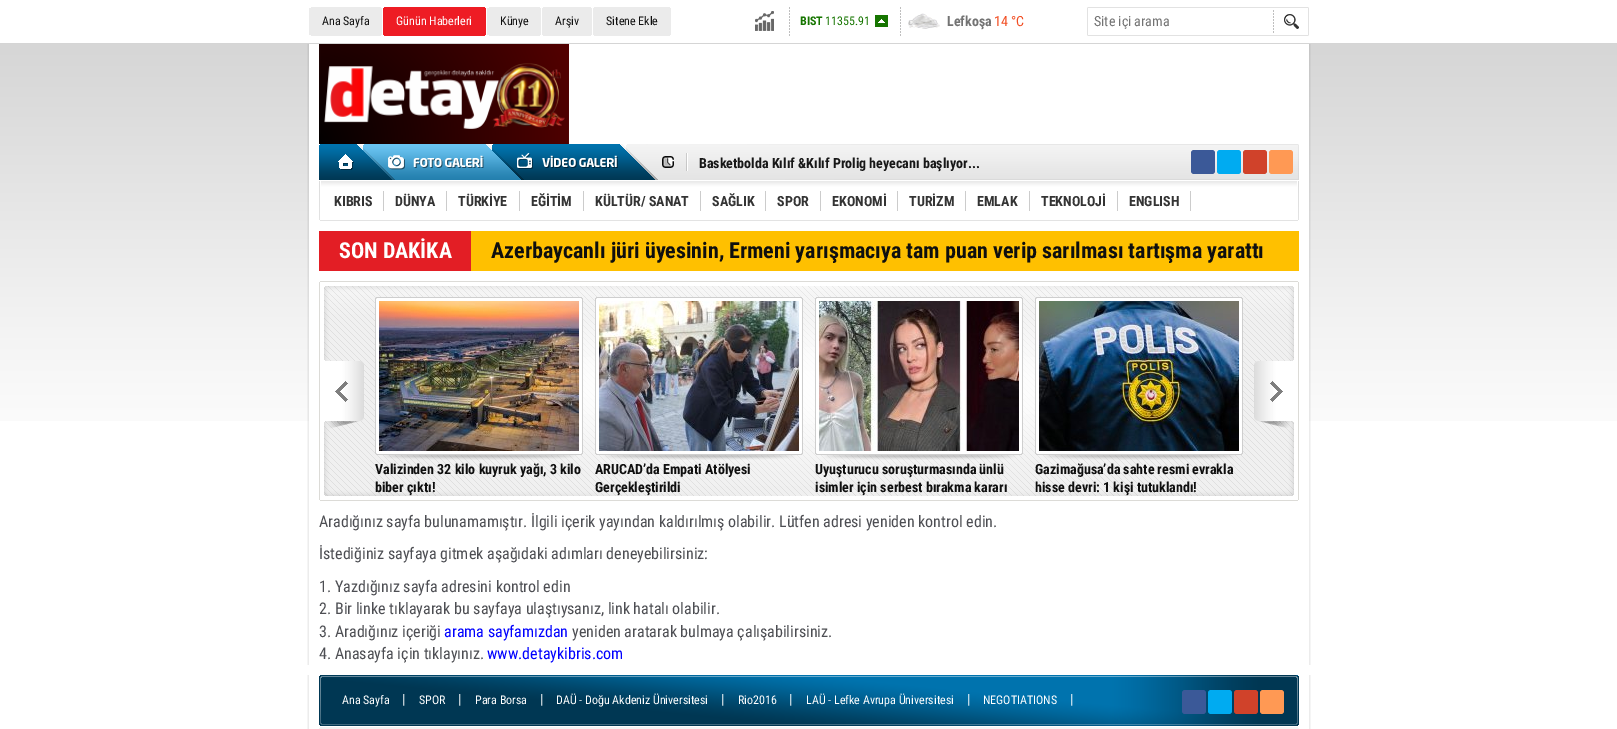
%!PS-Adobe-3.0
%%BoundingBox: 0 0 1617 729
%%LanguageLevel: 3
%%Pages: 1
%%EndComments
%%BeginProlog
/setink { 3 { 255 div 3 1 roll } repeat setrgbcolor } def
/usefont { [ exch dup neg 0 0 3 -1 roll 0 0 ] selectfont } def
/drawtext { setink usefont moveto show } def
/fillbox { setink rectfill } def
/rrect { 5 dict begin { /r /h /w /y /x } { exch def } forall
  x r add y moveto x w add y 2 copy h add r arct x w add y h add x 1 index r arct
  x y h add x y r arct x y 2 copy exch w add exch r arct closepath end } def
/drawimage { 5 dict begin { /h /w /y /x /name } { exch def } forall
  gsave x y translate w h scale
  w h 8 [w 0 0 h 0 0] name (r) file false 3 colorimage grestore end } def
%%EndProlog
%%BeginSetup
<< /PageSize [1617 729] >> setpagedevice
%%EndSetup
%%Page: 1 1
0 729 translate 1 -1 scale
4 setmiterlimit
0 0 1617 729 255 255 255 fillbox
(assets/img1.rgb) 0 44 1617 377 drawimage
0 43 1617 1 213 213 213 fillbox
(assets/img2.rgb) 755 7 554 29 drawimage
309 7 73 29 235 235 235 fillbox
(assets/img3.rgb) 309 7 2 29 drawimage
(assets/img4.rgb) 381 7 1 29 drawimage
(Ana Sayfa) 322 25 /RobotoCondensed-Regular 12 15 15 15 drawtext
383 7 103 29 238 28 36 fillbox
(assets/img5.rgb) 383 7 1 29 drawimage
(assets/img5.rgb) 485 7 1 29 drawimage
(Günün Haberleri) 396 25 /RobotoCondensed-Regular 12 255 255 255 drawtext
487 7 54 29 235 235 235 fillbox
(assets/img3.rgb) 487 7 2 29 drawimage
(assets/img4.rgb) 540 7 1 29 drawimage
(Künye) 500 25 /RobotoCondensed-Regular 12 15 15 15 drawtext
542 7 50 29 235 235 235 fillbox
(assets/img4.rgb) 542 7 1 29 drawimage
(assets/img4.rgb) 591 7 1 29 drawimage
(Arşiv) 555 25 /RobotoCondensed-Regular 12 15 15 15 drawtext
593 7 78 29 235 235 235 fillbox
(assets/img4.rgb) 593 7 1 29 drawimage
(assets/img4.rgb) 670 7 1 29 drawimage
(Sitene Ekle) 606 25 /RobotoCondensed-Regular 12 15 15 15 drawtext
(assets/img6.rgb) 875 15 13 12 drawimage
(BIST) 800 25 /RobotoCondensed-Bold 12 22 117 0 drawtext
(11355.91) 825 25 /RobotoCondensed-Regular 12 22 117 0 drawtext
(assets/img7.rgb) 908 13 32 16 drawimage
(Lefkoşa) 947 26 /RobotoCondensed-Bold 14 115 115 115 drawtext
(14 °C) 994 26 /RobotoCondensed-Regular 14 242 78 35 drawtext
(Site içi arama) 1094 26 /RobotoCondensed-Regular 14 115 115 115 drawtext
(assets/img8.rgb) 307 44 1004 467 drawimage
(assets/img9.rgb) 319 144 980 77 drawimage
(assets/img10.rgb) 319 44 250 100 drawimage
(Basketbolda Kılıf &Kılıf Prolig heyecanı başlıyor...) 699 168 /RobotoCondensed-Bold 14 23 23 23 drawtext
59 89 152 setink
1191 150 24 24 3 rrect fill
0 171 241 setink
1217 150 24 24 3 rrect fill
208 66 42 setink
1243 150 24 24 3 rrect fill
255 153 84 setink
1269 150 24 24 3 rrect fill
(KIBRIS) 334 206 /RobotoCondensed-Bold 14 52 52 52 drawtext
383 191 1 20 204 204 204 fillbox
(DÜNYA) 395 206 /RobotoCondensed-Bold 14 52 52 52 drawtext
446 191 1 20 204 204 204 fillbox
(TÜRKİYE) 458 206 /RobotoCondensed-Bold 14 52 52 52 drawtext
519 191 1 20 204 204 204 fillbox
(EĞİTİM) 531 206 /RobotoCondensed-Bold 14 52 52 52 drawtext
583 191 1 20 204 204 204 fillbox
(KÜLTÜR/ SANAT) 595 206 /RobotoCondensed-Bold 14 52 52 52 drawtext
700 191 1 20 204 204 204 fillbox
(SAĞLIK) 712 206 /RobotoCondensed-Bold 14 52 52 52 drawtext
765 191 1 20 204 204 204 fillbox
(SPOR) 777 206 /RobotoCondensed-Bold 14 52 52 52 drawtext
820 191 1 20 204 204 204 fillbox
(EKONOMİ) 832 206 /RobotoCondensed-Bold 14 52 52 52 drawtext
897 191 1 20 204 204 204 fillbox
(TURİZM) 909 206 /RobotoCondensed-Bold 14 52 52 52 drawtext
965 191 1 20 204 204 204 fillbox
(EMLAK) 977 206 /RobotoCondensed-Bold 14 52 52 52 drawtext
1029 191 1 20 204 204 204 fillbox
(TEKNOLOJİ) 1041 206 /RobotoCondensed-Bold 14 52 52 52 drawtext
1117 191 1 20 204 204 204 fillbox
(ENGLISH) 1129 206 /RobotoCondensed-Bold 14 52 52 52 drawtext
1190 191 1 20 204 204 204 fillbox
471 231 828 40 255 192 0 fillbox
319 231 152 40 227 30 37 fillbox
(SON DAKİKA) 339 258 /RobotoCondensed-Bold 22 255 255 255 drawtext
(Azerbaycanlı jüri üyesinin, Ermeni yarışmacıya tam puan verip sarılması tartışma yarattı) 491 258 /RobotoCondensed-Bold 22 15 15 15 drawtext
(assets/img11.rgb) 319 281 980 220 drawimage
(assets/img12.rgb) 375 297 208 163 drawimage
(assets/img13.rgb) 379 301 200 150 drawimage
(Valizinden 32 kilo kuyruk yağı, 3 kilo) 375 474 /RobotoCondensed-Bold 14 15 15 15 drawtext
(biber çıktı!) 375 492 /RobotoCondensed-Bold 14 15 15 15 drawtext
(assets/img14.rgb) 595 297 208 163 drawimage
(assets/img15.rgb) 599 301 200 150 drawimage
(ARUCAD’da Empati Atölyesi) 595 474 /RobotoCondensed-Bold 14 15 15 15 drawtext
(Gerçekleştirildi) 595 492 /RobotoCondensed-Bold 14 15 15 15 drawtext
(assets/img16.rgb) 815 297 208 163 drawimage
(assets/img17.rgb) 819 301 200 150 drawimage
(Uyuşturucu soruşturmasında ünlü) 815 474 /RobotoCondensed-Bold 14 15 15 15 drawtext
(isimler için serbest bırakma kararı) 815 492 /RobotoCondensed-Bold 14 15 15 15 drawtext
(assets/img18.rgb) 1035 297 208 163 drawimage
(assets/img19.rgb) 1039 301 200 150 drawimage
(Gazimağusa’da sahte resmi evrakla) 1035 474 /RobotoCondensed-Bold 14 15 15 15 drawtext
(hisse devri: 1 kişi tutuklandı!) 1035 492 /RobotoCondensed-Bold 14 15 15 15 drawtext
(assets/img20.rgb) 307 511 1004 154 drawimage
(Aradığınız sayfa bulunamamıştır. İlgili içerik yayından kaldırılmış olabilir. Lütfen adresi yeniden kontrol edin.) 319 527 /RobotoCondensed-Regular 16 77 78 83 drawtext
(İstediğiniz sayfaya gitmek aşağıdaki adımları deneyebilirsiniz:) 319 559 /RobotoCondensed-Regular 16 77 78 83 drawtext
(1. Yazdığınız sayfa adresini kontrol edin) 319 592 /RobotoCondensed-Regular 16 77 78 83 drawtext
(2. Bir linke tıklayarak bu sayfaya ulaştıysanız, link hatalı olabilir.) 319 614 /RobotoCondensed-Regular 16 77 78 83 drawtext
(3. Aradığınız içeriği) 319 637 /RobotoCondensed-Regular 16 77 78 83 drawtext
(arama sayfamızdan) 444 637 /RobotoCondensed-Regular 16 0 0 255 drawtext
(yeniden aratarak bulmaya çalışabilirsiniz.) 572 637 /RobotoCondensed-Regular 16 77 78 83 drawtext
(4. Anasayfa için tıklayınız.) 319 659 /RobotoCondensed-Regular 16 77 78 83 drawtext
(www.detaykibris.com) 487 659 /RobotoCondensed-Regular 16 0 0 255 drawtext
(assets/img21.rgb) 307 675 1004 54 drawimage
(assets/img22.rgb) 319 675 980 54 drawimage
(Ana Sayfa) 342 704 /RobotoCondensed-Regular 12 255 255 255 drawtext
(|) 402 704 /RobotoCondensed-Regular 14 255 255 255 drawtext
(SPOR) 419 704 /RobotoCondensed-Regular 12 255 255 255 drawtext
(|) 458 704 /RobotoCondensed-Regular 14 255 255 255 drawtext
(Para Borsa) 475 704 /RobotoCondensed-Regular 12 255 255 255 drawtext
(|) 540 704 /RobotoCondensed-Regular 14 255 255 255 drawtext
(DAÜ - Doğu Akdeniz Üniversitesi) 556 704 /RobotoCondensed-Regular 12 255 255 255 drawtext
(|) 721 704 /RobotoCondensed-Regular 14 255 255 255 drawtext
(Rio2016) 738 704 /RobotoCondensed-Regular 12 255 255 255 drawtext
(|) 789 704 /RobotoCondensed-Regular 14 255 255 255 drawtext
(LAÜ - Lefke Avrupa Üniversitesi) 806 704 /RobotoCondensed-Regular 12 255 255 255 drawtext
(|) 967 704 /RobotoCondensed-Regular 14 255 255 255 drawtext
(NEGOTIATIONS) 983 704 /RobotoCondensed-Regular 12 255 255 255 drawtext
(|) 1070 704 /RobotoCondensed-Regular 14 255 255 255 drawtext
59 89 152 setink
1182 690 24 24 3 rrect fill
0 171 241 setink
1208 690 24 24 3 rrect fill
208 66 42 setink
1234 690 24 24 3 rrect fill
255 153 84 setink
1260 690 24 24 3 rrect fill
showpage
%%EOF
